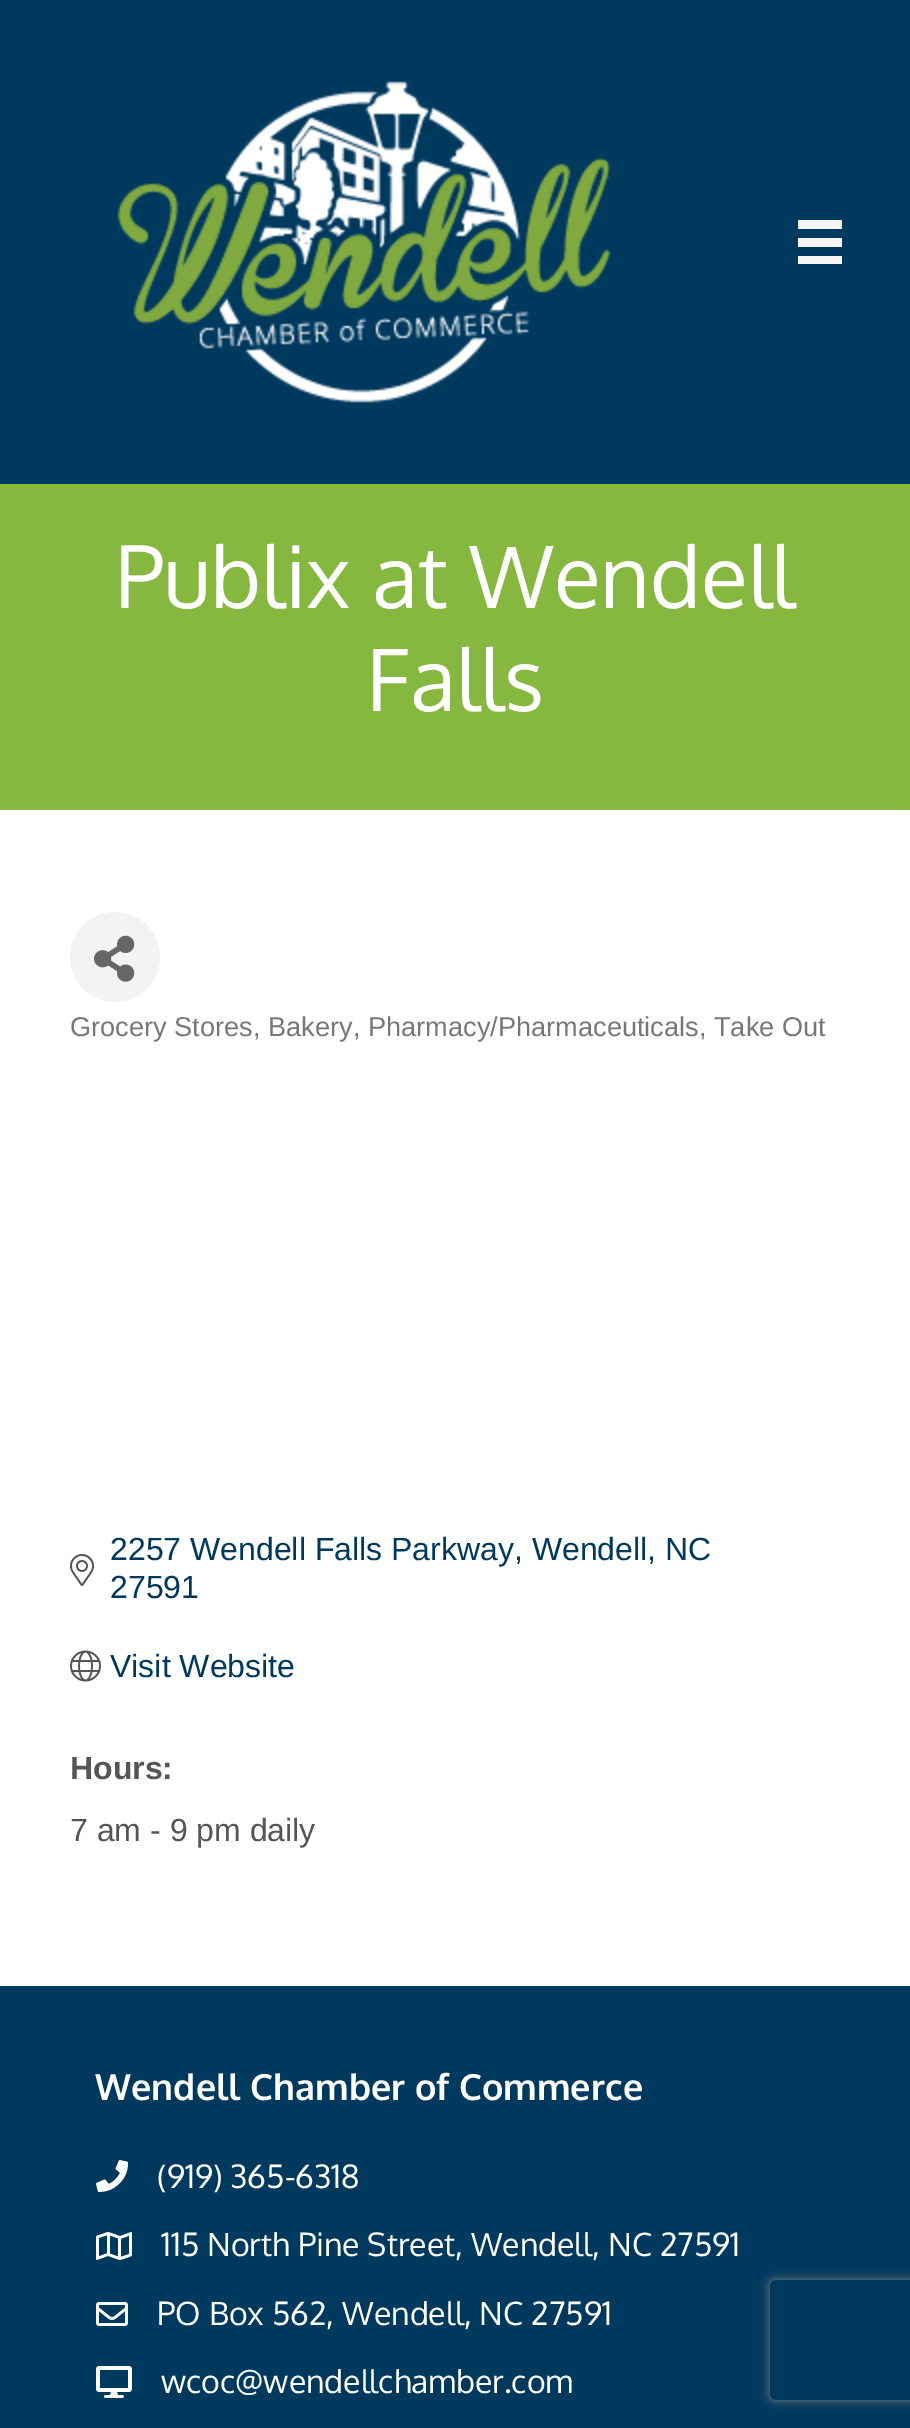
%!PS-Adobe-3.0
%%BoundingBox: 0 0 910 2428
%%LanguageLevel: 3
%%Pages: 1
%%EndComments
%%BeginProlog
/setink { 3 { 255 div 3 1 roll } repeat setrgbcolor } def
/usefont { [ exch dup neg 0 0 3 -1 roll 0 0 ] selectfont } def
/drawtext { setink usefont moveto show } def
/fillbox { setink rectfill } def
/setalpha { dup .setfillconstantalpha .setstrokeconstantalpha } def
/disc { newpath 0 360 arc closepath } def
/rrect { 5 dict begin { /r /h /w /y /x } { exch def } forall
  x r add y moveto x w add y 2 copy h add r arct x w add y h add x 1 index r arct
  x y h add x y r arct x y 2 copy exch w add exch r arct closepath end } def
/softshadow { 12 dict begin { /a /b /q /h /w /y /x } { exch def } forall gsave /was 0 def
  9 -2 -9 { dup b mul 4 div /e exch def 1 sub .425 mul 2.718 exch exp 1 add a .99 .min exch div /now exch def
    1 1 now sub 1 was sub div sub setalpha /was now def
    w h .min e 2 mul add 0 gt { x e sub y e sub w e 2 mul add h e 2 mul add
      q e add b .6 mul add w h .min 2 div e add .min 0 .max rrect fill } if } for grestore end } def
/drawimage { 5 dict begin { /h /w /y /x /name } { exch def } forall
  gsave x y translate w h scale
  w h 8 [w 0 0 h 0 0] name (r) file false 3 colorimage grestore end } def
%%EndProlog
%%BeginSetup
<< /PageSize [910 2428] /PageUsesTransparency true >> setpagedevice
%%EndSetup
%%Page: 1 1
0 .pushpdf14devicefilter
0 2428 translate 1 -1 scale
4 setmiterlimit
0 0 910 2428 255 255 255 fillbox
0 0 910 484 0 57 94 fillbox
(assets/img1.rgb) 117 81 494 322 drawimage
798 220 44 9 245 245 245 fillbox
798 238 44 9 245 245 245 fillbox
798 256 44 8 245 245 245 fillbox
0 484 910 326 134 183 63 fillbox
(Publix at Wendell) 115 608 /Oxygen-Regular 86 255 255 255 drawtext
(Falls) 366 711 /Oxygen-Regular 86 255 255 255 drawtext
243 243 243 setink
115 957 45 disc fill
(assets/img2.rgb) 94 935 41 47 drawimage
(Grocery Stores, Bakery, Pharmacy/Pharmaceuticals, Take Out) 70 1036 /LiberationSans-Regular 27.2 119 119 119 drawtext
(assets/img3.rgb) 70 1554 24 32 drawimage
(2257 Wendell Falls Parkway, Wendell, NC) 110 1560 /LiberationSans-Regular 32 0 57 94 drawtext
(27591) 110 1598 /LiberationSans-Regular 32 0 57 94 drawtext
(assets/img4.rgb) 70 1650 31 32 drawimage
(Visit Website) 110 1677 /LiberationSans-Regular 32 0 57 94 drawtext
(Hours:) 70 1779 /LiberationSans-Bold 32 85 85 85 drawtext
(7 am - 9 pm daily) 70 1841 /LiberationSans-Regular 32 85 85 85 drawtext
0 1986 910 442 0 57 94 fillbox
(Wendell Chamber of Commerce) 95 2100 /Oxygen-Bold 36 255 255 255 drawtext
(assets/img5.rgb) 96 2160 33 32 drawimage
(\(919\) 365-6318) 157 2188 /Oxygen-Regular 32 255 255 255 drawtext
(assets/img6.rgb) 96 2232 36 28 drawimage
(115 North Pine Street, Wendell, NC 27591) 161 2256 /Oxygen-Regular 32 255 255 255 drawtext
(assets/img7.rgb) 96 2302 32 24 drawimage
(PO Box 562, Wendell, NC 27591) 157 2325 /Oxygen-Regular 32 255 255 255 drawtext
(assets/img8.rgb) 96 2366 36 32 drawimage
(wcoc@wendellchamber.com) 161 2393 /Oxygen-Regular 32 255 255 255 drawtext
gsave
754 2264 moveto 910 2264 lineto 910 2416 lineto 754 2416 lineto closepath 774 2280 moveto 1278 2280 lineto 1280 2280 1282 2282 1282 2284 curveto 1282 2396 lineto 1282 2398 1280 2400 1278 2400 curveto 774 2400 lineto 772 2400 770 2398 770 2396 curveto 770 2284 lineto 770 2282 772 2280 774 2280 curveto closepath eoclip newpath
128 128 128 setink
770 2280 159 120 4 5 1 softshadow
grestore
.poppdf14devicefilter showpage
%%EOF
